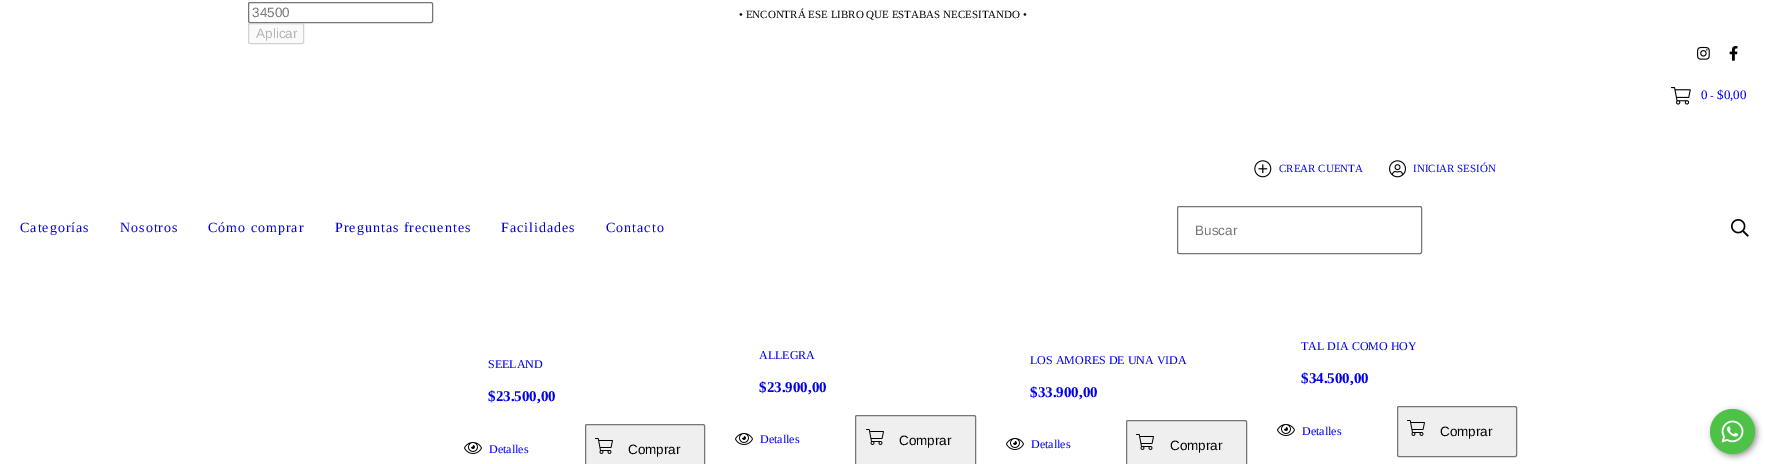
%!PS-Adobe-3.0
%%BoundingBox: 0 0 1765 464
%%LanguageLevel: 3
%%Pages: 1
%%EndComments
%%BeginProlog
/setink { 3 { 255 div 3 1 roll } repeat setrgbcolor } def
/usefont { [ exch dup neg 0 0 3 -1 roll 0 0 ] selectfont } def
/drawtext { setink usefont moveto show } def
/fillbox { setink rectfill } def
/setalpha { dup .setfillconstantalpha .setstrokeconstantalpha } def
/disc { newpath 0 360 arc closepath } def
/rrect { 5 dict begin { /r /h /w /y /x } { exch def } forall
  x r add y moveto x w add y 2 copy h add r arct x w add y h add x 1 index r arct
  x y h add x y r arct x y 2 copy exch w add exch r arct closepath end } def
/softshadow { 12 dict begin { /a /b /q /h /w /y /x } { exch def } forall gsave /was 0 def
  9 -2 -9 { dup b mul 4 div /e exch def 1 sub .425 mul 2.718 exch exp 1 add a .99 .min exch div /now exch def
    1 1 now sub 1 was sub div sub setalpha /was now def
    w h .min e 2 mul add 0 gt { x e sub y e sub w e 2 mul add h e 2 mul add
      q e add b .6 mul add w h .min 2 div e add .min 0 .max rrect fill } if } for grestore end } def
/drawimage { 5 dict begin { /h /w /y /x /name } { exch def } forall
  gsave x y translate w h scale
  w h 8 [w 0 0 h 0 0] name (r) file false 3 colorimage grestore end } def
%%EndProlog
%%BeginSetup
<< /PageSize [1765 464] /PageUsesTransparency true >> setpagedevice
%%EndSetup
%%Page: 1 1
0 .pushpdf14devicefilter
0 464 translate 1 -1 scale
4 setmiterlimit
0 0 1765 464 255 255 255 fillbox
118 118 118 setink
248.5 2.5 184 20 1.5 rrect stroke
(34500) 252 17 /LiberationSans-Regular 13.5 117 117 117 drawtext
250 250 250 setink
248.5 23.5 55 20 1.5 rrect gsave fill grestore
210 210 210 setink
stroke
(Aplicar) 256 38 /LiberationSans-Regular 13.5 180 180 180 drawtext
(SEELAND) 488 368 /LiberationSerif-Regular 12 0 0 238 drawtext
($23.500,00) 488 401 /LiberationSerif-Bold 15 0 0 238 drawtext
(assets/img1.rgb) 464 442 18 12 drawimage
(Detalles) 489 453 /LiberationSerif-Regular 12 0 0 238 drawtext
239 239 239 setink
585.5 424.5 119 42 1.5 rrect gsave fill grestore
118 118 118 setink
stroke
(assets/img2.rgb) 595 438 18 16 drawimage
(Comprar) 628 454 /LiberationSans-Regular 13.5 0 0 0 drawtext
(ALLEGRA) 759 359 /LiberationSerif-Regular 12 0 0 238 drawtext
($23.900,00) 759 392 /LiberationSerif-Bold 15 0 0 238 drawtext
(assets/img1.rgb) 735 433 18 12 drawimage
(Detalles) 760 443 /LiberationSerif-Regular 12 0 0 238 drawtext
239 239 239 setink
855.5 415.5 120 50 1.5 rrect gsave fill grestore
118 118 118 setink
stroke
(assets/img2.rgb) 866 429 18 16 drawimage
(Comprar) 899 445 /LiberationSans-Regular 13.5 0 0 0 drawtext
(LOS AMORES DE UNA VIDA) 1030 364 /LiberationSerif-Regular 12 0 0 238 drawtext
($33.900,00) 1030 397 /LiberationSerif-Bold 15 0 0 238 drawtext
(assets/img1.rgb) 1006 438 18 12 drawimage
(Detalles) 1031 448 /LiberationSerif-Regular 12 0 0 238 drawtext
239 239 239 setink
1126.5 420.5 120 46 1.5 rrect gsave fill grestore
118 118 118 setink
stroke
(assets/img2.rgb) 1136 434 18 16 drawimage
(Comprar) 1170 450 /LiberationSans-Regular 13.5 0 0 0 drawtext
(TAL DIA COMO HOY) 1301 350 /LiberationSerif-Regular 12 0 0 238 drawtext
($34.500,00) 1301 383 /LiberationSerif-Bold 15 0 0 238 drawtext
(assets/img1.rgb) 1277 424 18 12 drawimage
(Detalles) 1302 435 /LiberationSerif-Regular 12 0 0 238 drawtext
239 239 239 setink
1397.5 406.5 119 50 1.5 rrect gsave fill grestore
118 118 118 setink
stroke
(assets/img2.rgb) 1407 420 18 16 drawimage
(Comprar) 1440 436 /LiberationSans-Regular 13.5 0 0 0 drawtext
(• ENCONTRÁ ESE LIBRO QUE ESTABAS NECESITANDO •) 739 18 /LiberationSerif-Regular 11 0 0 0 drawtext
(assets/img3.rgb) 1697 46 13 14 drawimage
(assets/img4.rgb) 1729 46 9 15 drawimage
(assets/img5.rgb) 1671 87 20 18 drawimage
(0) 1701 99 /LiberationSerif-Regular 13 0 0 238 drawtext
(-) 1710 99 /LiberationSerif-Regular 11 0 0 238 drawtext
($0,00) 1717 99 /LiberationSerif-Regular 13 0 0 238 drawtext
(assets/img6.rgb) 1254 160 18 18 drawimage
(CREAR CUENTA) 1279 172 /LiberationSerif-Regular 11 0 0 238 drawtext
(assets/img7.rgb) 1389 160 17 18 drawimage
(INICIAR SESIÓN) 1413 172 /LiberationSerif-Regular 11 0 0 238 drawtext
/LiberationSerif-Regular 14 usefont
20 232 moveto 1 0 (Categorías) ashow
120 232 moveto 1 0 (Nosotros) ashow
208 232 moveto 1 0 (Cómo comprar) ashow
335 232 moveto 1 0 (Preguntas frecuentes) ashow
501 232 moveto 1 0 (Facilidades) ashow
606 232 moveto 1 0 (Contacto) ashow
118 118 118 setink
1177.5 206.5 244 47 1.5 rrect stroke
(Buscar) 1195 235 /LiberationSans-Regular 13.5 117 117 117 drawtext
(assets/img8.rgb) 1731 219 18 18 drawimage
0 0 0 setink
1712 411 45 45 22.5 3 0.4 softshadow
77 194 71 setink
1732.5 431.5 22.5 disc fill
(assets/img9.rgb) 1721 420 23 23 drawimage
.poppdf14devicefilter showpage
%%EOF
